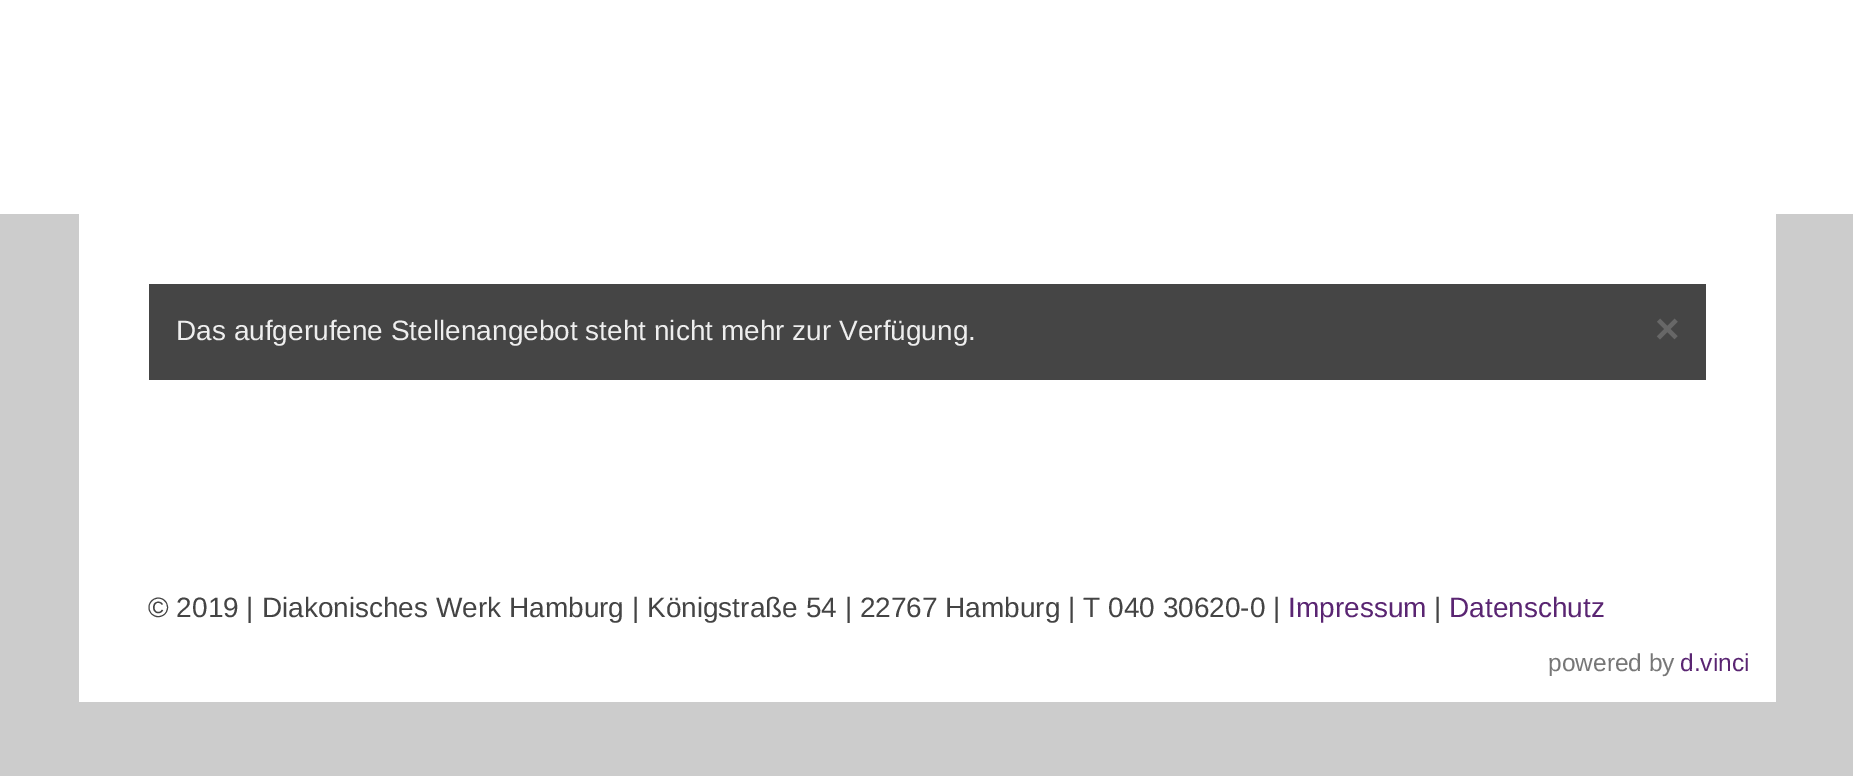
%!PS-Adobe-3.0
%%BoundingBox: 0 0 1853 776
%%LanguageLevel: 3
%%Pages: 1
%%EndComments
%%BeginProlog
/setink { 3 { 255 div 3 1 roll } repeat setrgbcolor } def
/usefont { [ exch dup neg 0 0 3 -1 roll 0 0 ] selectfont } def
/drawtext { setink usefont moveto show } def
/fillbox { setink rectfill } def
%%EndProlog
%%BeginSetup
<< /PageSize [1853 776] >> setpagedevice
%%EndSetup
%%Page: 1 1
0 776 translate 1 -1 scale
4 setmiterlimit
0 0 1853 776 204 204 204 fillbox
0 0 1853 214 255 255 255 fillbox
79 214 1697 488 255 255 255 fillbox
149 284 1557 96 69 69 69 fillbox
(Das aufgerufene Stellenangebot steht nicht mehr zur Verfügung.) 176 340 /LiberationSans-Regular 28 238 238 238 drawtext
(×) 1655 343 /LiberationSans-Bold 42 103 103 103 drawtext
(© 2019 | Diakonisches Werk Hamburg | Königstraße 54 | 22767 Hamburg | T 040 30620-0 |) 148 617 /LiberationSans-Regular 28 68 68 68 drawtext
(Impressum) 1288 617 /LiberationSans-Regular 28 90 37 114 drawtext
(|) 1434 617 /LiberationSans-Regular 28 68 68 68 drawtext
(Datenschutz) 1449 617 /LiberationSans-Regular 28 90 37 114 drawtext
(powered by) 1548 671 /LiberationSans-Regular 24.5 119 119 119 drawtext
(d.vinci) 1680 671 /LiberationSans-Regular 24.5 90 37 114 drawtext
showpage
%%EOF
